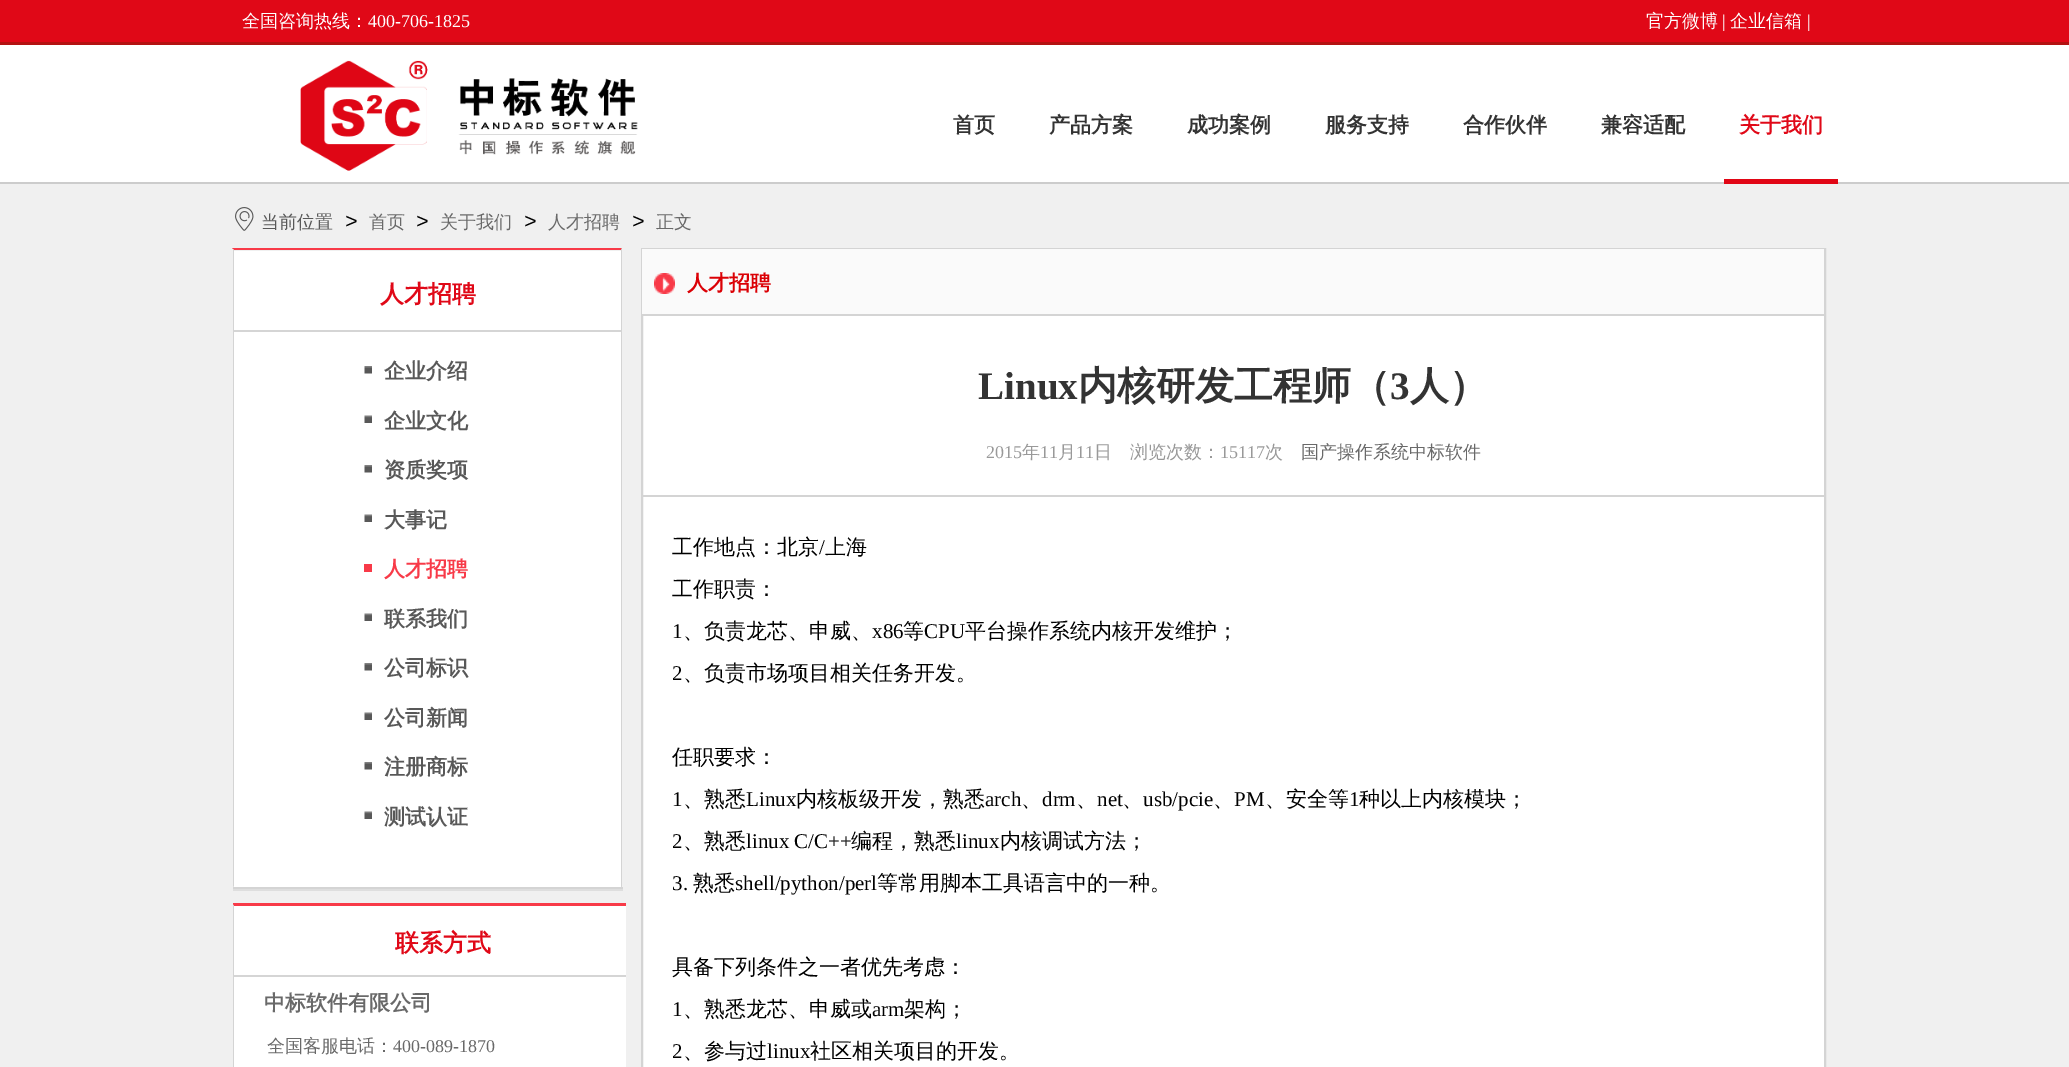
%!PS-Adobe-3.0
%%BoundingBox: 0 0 2069 1067
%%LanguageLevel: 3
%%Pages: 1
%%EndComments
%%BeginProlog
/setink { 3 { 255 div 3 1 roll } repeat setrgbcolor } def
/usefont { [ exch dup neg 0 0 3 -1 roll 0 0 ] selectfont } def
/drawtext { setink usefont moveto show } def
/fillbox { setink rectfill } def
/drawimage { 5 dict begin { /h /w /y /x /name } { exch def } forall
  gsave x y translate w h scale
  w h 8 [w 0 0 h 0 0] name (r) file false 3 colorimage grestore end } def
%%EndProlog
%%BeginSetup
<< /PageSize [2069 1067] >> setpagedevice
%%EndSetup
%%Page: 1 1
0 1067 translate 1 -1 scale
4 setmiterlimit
0 0 2069 1067 240 240 240 fillbox
0 45 2069 137 255 255 255 fillbox
0 182 2069 2 204 204 204 fillbox
0 0 2069 42 224 8 23 fillbox
0 42 2069 3 179 18 18 fillbox
(全国咨询热线：) 242 27 /WenQuanYiZenHei-Medium 18 255 255 255 drawtext
(400-706-1825) 368 27 /LiberationSerif-Regular 18 255 255 255 drawtext
(官方微博) 1646 27 /WenQuanYiZenHei-Medium 18 255 255 255 drawtext
(|) 1722 27 /LiberationSerif-Regular 18 255 255 255 drawtext
(企业信箱) 1730 27 /WenQuanYiZenHei-Medium 18 255 255 255 drawtext
(|) 1807 27 /LiberationSerif-Regular 18 255 255 255 drawtext
(assets/img1.rgb) 300 60 338 111 drawimage
(首页) 953 132 /WenQuanYiZenHei-Bold 21 51 51 51 drawtext
(产品方案) 1049 132 /WenQuanYiZenHei-Bold 21 51 51 51 drawtext
(成功案例) 1187 132 /WenQuanYiZenHei-Bold 21 51 51 51 drawtext
(服务支持) 1325 132 /WenQuanYiZenHei-Bold 21 51 51 51 drawtext
(合作伙伴) 1463 132 /WenQuanYiZenHei-Bold 21 51 51 51 drawtext
(兼容适配) 1601 132 /WenQuanYiZenHei-Bold 21 51 51 51 drawtext
1724 179 114 5 225 6 21 fillbox
(关于我们) 1739 132 /WenQuanYiZenHei-Bold 21 224 8 23 drawtext
(assets/img2.rgb) 235 207 19 24 drawimage
(当前位置) 261 228 /WenQuanYiZenHei-Medium 18 88 88 88 drawtext
(>) 345 228 /LiberationSans-Italic 21 0 0 0 drawtext
(首页) 369 228 /WenQuanYiZenHei-Medium 18 105 105 105 drawtext
(>) 416 228 /LiberationSans-Italic 21 0 0 0 drawtext
(关于我们) 440 228 /WenQuanYiZenHei-Medium 18 105 105 105 drawtext
(>) 524 228 /LiberationSans-Italic 21 0 0 0 drawtext
(人才招聘) 548 228 /WenQuanYiZenHei-Medium 18 105 105 105 drawtext
(>) 632 228 /LiberationSans-Italic 21 0 0 0 drawtext
(正文) 656 228 /WenQuanYiZenHei-Medium 18 105 105 105 drawtext
233 889 390 2 222 222 222 fillbox
234 251 387 636 255 255 255 fillbox
248 58 72 setink
232 248 moveto 622 248 lineto 621 250 lineto 234 250 lineto closepath fill
212 212 212 setink
622 248 moveto 622 888 lineto 621 886 lineto 621 250 lineto closepath fill
233 887 390 2 212 212 212 fillbox
gsave
233 248 393 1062 rectclip
232 888 moveto 232 248 lineto 234 250 lineto 234 886 lineto closepath fill
grestore
234 330 387 2 213 213 213 fillbox
(人才招聘) 380 302 /WenQuanYiZenHei-Bold 24 224 8 23 drawtext
(assets/img3.rgb) 364 366 8 8 drawimage
(企业介绍) 384 378 /WenQuanYiZenHei-Bold 21 88 88 88 drawtext
(assets/img4.rgb) 364 415 8 8 drawimage
(企业文化) 384 428 /WenQuanYiZenHei-Bold 21 88 88 88 drawtext
(assets/img3.rgb) 364 465 8 8 drawimage
(资质奖项) 384 477 /WenQuanYiZenHei-Bold 21 88 88 88 drawtext
(assets/img4.rgb) 364 514 8 8 drawimage
(大事记) 384 527 /WenQuanYiZenHei-Bold 21 88 88 88 drawtext
364 564 8 8 248 58 72 fillbox
(人才招聘) 384 576 /WenQuanYiZenHei-Bold 21 248 58 72 drawtext
(assets/img4.rgb) 364 613 8 8 drawimage
(联系我们) 384 626 /WenQuanYiZenHei-Bold 21 88 88 88 drawtext
(assets/img3.rgb) 364 663 8 8 drawimage
(公司标识) 384 675 /WenQuanYiZenHei-Bold 21 88 88 88 drawtext
(assets/img4.rgb) 364 712 8 8 drawimage
(公司新闻) 384 725 /WenQuanYiZenHei-Bold 21 88 88 88 drawtext
(assets/img3.rgb) 364 762 8 8 drawimage
(注册商标) 384 774 /WenQuanYiZenHei-Bold 21 88 88 88 drawtext
(assets/img4.rgb) 364 811 8 8 drawimage
(测试认证) 384 824 /WenQuanYiZenHei-Bold 21 88 88 88 drawtext
233 904 393 163 255 255 255 fillbox
gsave
233 248 393 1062 rectclip
248 58 72 setink
232 903 moveto 652 903 lineto 651 906 lineto 234 906 lineto closepath fill
212 212 212 setink
232 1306 moveto 232 903 lineto 234 906 lineto 234 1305 lineto closepath fill
grestore
234 975 392 2 213 213 213 fillbox
(联系方式) 395 951 /WenQuanYiZenHei-Bold 24 224 8 23 drawtext
(中标软件有限公司) 264 1010 /WenQuanYiZenHei-Bold 21 105 105 105 drawtext
(全国客服电话：) 267 1052 /WenQuanYiZenHei-Medium 18 105 105 105 drawtext
(400-089-1870) 393 1052 /LiberationSerif-Regular 18 105 105 105 drawtext
643 316 1181 751 255 255 255 fillbox
212 212 212 setink
2 setlinewidth
642 249 1183 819 rectstroke
642 249 1182 65 250 250 250 fillbox
642 314 1182 2 212 212 212 fillbox
(assets/img5.rgb) 654 273 21 21 drawimage
(人才招聘) 687 290 /WenQuanYiZenHei-Bold 21 219 0 5 drawtext
642 495 1182 2 212 212 212 fillbox
(Linux) 978 399 /LiberationSerif-Bold 39 51 51 51 drawtext
(内核研发工程师（) 1078 399 /WenQuanYiZenHei-Bold 39 51 51 51 drawtext
(3) 1390 399 /LiberationSerif-Bold 39 51 51 51 drawtext
(人）) 1410 399 /WenQuanYiZenHei-Bold 39 51 51 51 drawtext
(2015) 986 458 /LiberationSerif-Regular 18 153 153 153 drawtext
(年) 1022 458 /WenQuanYiZenHei-Medium 18 153 153 153 drawtext
(11) 1040 458 /LiberationSerif-Regular 18 153 153 153 drawtext
(月) 1058 458 /WenQuanYiZenHei-Medium 18 153 153 153 drawtext
(11) 1076 458 /LiberationSerif-Regular 18 153 153 153 drawtext
(日) 1094 458 /WenQuanYiZenHei-Medium 18 153 153 153 drawtext
(浏览次数：) 1130 458 /WenQuanYiZenHei-Medium 18 153 153 153 drawtext
(15117) 1220 458 /LiberationSerif-Regular 18 153 153 153 drawtext
(次) 1265 458 /WenQuanYiZenHei-Medium 18 153 153 153 drawtext
(国产操作系统中标软件) 1301 458 /WenQuanYiZenHei-Medium 18 105 105 105 drawtext
(工作地点：北京) 672 554 /WenQuanYiZenHei-Medium 21 0 0 0 drawtext
(/) 819 554 /LiberationSerif-Regular 21 0 0 0 drawtext
(上海) 825 554 /WenQuanYiZenHei-Medium 21 0 0 0 drawtext
(工作职责：) 672 596 /WenQuanYiZenHei-Medium 21 0 0 0 drawtext
(1) 672 638 /LiberationSerif-Regular 21 0 0 0 drawtext
(、负责龙芯、申威、) 683 638 /WenQuanYiZenHei-Medium 21 0 0 0 drawtext
(x86) 872 638 /LiberationSerif-Regular 21 0 0 0 drawtext
(等) 903 638 /WenQuanYiZenHei-Medium 21 0 0 0 drawtext
(CPU) 924 638 /LiberationSerif-Regular 21 0 0 0 drawtext
(平台操作系统内核开发维护；) 965 638 /WenQuanYiZenHei-Medium 21 0 0 0 drawtext
(2) 672 680 /LiberationSerif-Regular 21 0 0 0 drawtext
(、负责市场项目相关任务开发。) 683 680 /WenQuanYiZenHei-Medium 21 0 0 0 drawtext
(任职要求：) 672 764 /WenQuanYiZenHei-Medium 21 0 0 0 drawtext
(1) 672 806 /LiberationSerif-Regular 21 0 0 0 drawtext
(、熟悉) 683 806 /WenQuanYiZenHei-Medium 21 0 0 0 drawtext
(Linux) 746 806 /LiberationSerif-Regular 21 0 0 0 drawtext
(内核板级开发，熟悉) 796 806 /WenQuanYiZenHei-Medium 21 0 0 0 drawtext
(arch) 985 806 /LiberationSerif-Regular 21 0 0 0 drawtext
(、) 1021 806 /WenQuanYiZenHei-Medium 21 0 0 0 drawtext
(drm) 1042 806 /LiberationSerif-Regular 21 0 0 0 drawtext
(、) 1076 806 /WenQuanYiZenHei-Medium 21 0 0 0 drawtext
(net) 1097 806 /LiberationSerif-Regular 21 0 0 0 drawtext
(、) 1122 806 /WenQuanYiZenHei-Medium 21 0 0 0 drawtext
(usb/pcie) 1143 806 /LiberationSerif-Regular 21 0 0 0 drawtext
(、) 1213 806 /WenQuanYiZenHei-Medium 21 0 0 0 drawtext
(PM) 1234 806 /LiberationSerif-Regular 21 0 0 0 drawtext
(、安全等) 1265 806 /WenQuanYiZenHei-Medium 21 0 0 0 drawtext
(1) 1349 806 /LiberationSerif-Regular 21 0 0 0 drawtext
(种以上内核模块；) 1359 806 /WenQuanYiZenHei-Medium 21 0 0 0 drawtext
(2) 672 848 /LiberationSerif-Regular 21 0 0 0 drawtext
(、熟悉) 683 848 /WenQuanYiZenHei-Medium 21 0 0 0 drawtext
(linux C/C++) 746 848 /LiberationSerif-Regular 21 0 0 0 drawtext
(编程，熟悉) 851 848 /WenQuanYiZenHei-Medium 21 0 0 0 drawtext
(linux) 956 848 /LiberationSerif-Regular 21 0 0 0 drawtext
(内核调试方法；) 1000 848 /WenQuanYiZenHei-Medium 21 0 0 0 drawtext
(3.) 672 890 /LiberationSerif-Regular 21 0 0 0 drawtext
(熟悉) 693 890 /WenQuanYiZenHei-Medium 21 0 0 0 drawtext
(shell/python/perl) 735 890 /LiberationSerif-Regular 21 0 0 0 drawtext
(等常用脚本工具语言中的一种。) 877 890 /WenQuanYiZenHei-Medium 21 0 0 0 drawtext
(具备下列条件之一者优先考虑：) 672 974 /WenQuanYiZenHei-Medium 21 0 0 0 drawtext
(1) 672 1016 /LiberationSerif-Regular 21 0 0 0 drawtext
(、熟悉龙芯、申威或) 683 1016 /WenQuanYiZenHei-Medium 21 0 0 0 drawtext
(arm) 872 1016 /LiberationSerif-Regular 21 0 0 0 drawtext
(架构；) 904 1016 /WenQuanYiZenHei-Medium 21 0 0 0 drawtext
(2) 672 1058 /LiberationSerif-Regular 21 0 0 0 drawtext
(、参与过) 683 1058 /WenQuanYiZenHei-Medium 21 0 0 0 drawtext
(linux) 767 1058 /LiberationSerif-Regular 21 0 0 0 drawtext
(社区相关项目的开发。) 810 1058 /WenQuanYiZenHei-Medium 21 0 0 0 drawtext
showpage
%%EOF
